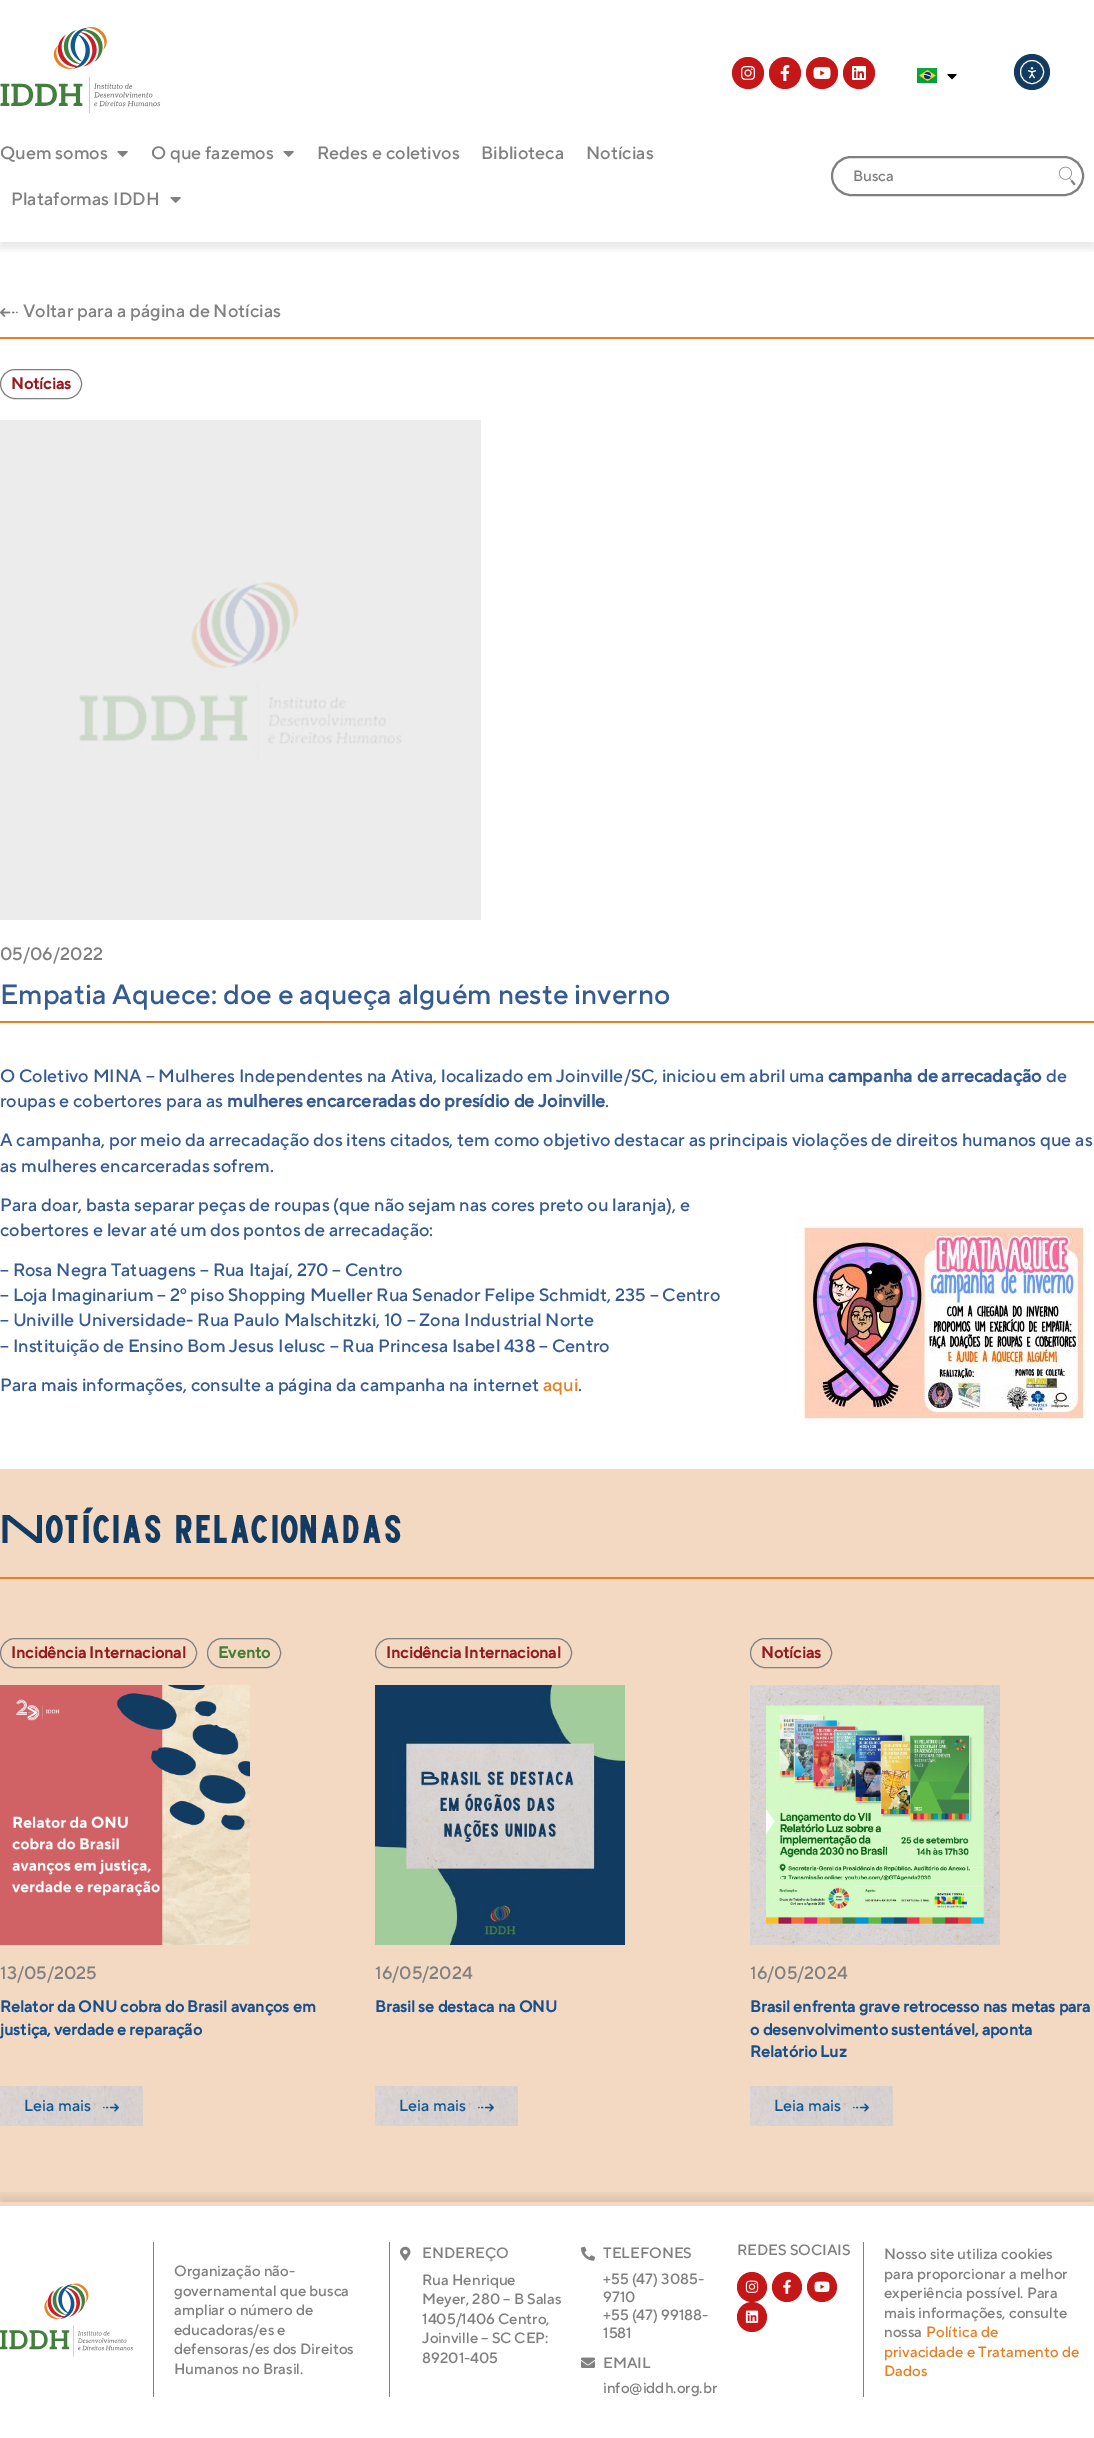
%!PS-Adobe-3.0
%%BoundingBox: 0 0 1094 2438
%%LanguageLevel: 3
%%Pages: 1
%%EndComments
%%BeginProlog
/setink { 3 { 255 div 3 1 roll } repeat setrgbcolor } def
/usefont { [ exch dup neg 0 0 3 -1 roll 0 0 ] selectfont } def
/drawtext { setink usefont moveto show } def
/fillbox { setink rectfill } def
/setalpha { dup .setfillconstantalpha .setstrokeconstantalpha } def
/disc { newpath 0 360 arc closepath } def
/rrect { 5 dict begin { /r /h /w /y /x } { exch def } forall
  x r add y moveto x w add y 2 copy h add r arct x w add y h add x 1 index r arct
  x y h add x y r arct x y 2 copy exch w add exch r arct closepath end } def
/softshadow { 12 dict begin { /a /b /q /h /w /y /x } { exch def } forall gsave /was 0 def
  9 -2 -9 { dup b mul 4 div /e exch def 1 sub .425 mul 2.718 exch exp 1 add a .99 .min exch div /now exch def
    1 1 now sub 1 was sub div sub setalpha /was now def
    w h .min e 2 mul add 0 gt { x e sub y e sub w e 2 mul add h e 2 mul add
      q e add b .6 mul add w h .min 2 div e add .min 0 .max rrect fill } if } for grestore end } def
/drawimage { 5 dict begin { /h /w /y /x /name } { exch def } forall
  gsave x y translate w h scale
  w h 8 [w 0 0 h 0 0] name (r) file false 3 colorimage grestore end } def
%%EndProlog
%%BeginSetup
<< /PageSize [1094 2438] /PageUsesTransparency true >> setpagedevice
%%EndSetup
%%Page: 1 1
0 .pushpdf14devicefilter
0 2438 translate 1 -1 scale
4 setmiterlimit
0 0 1094 2438 255 255 255 fillbox
19 59 97 setink
1032 72 18 disc fill
255 255 255 setink
1032 72 11.5 disc stroke
(assets/img1.rgb) 1027 67 10 12 drawimage
(assets/img2.rgb) 0 27 161 86 drawimage
197 23 24 setink
748 73 16 disc fill
(assets/img3.rgb) 741 66 14 14 drawimage
785 73 16 disc fill
(assets/img4.rgb) 780 65 10 16 drawimage
822 73 16 disc fill
(assets/img5.rgb) 813 67 18 12 drawimage
859 73 16 disc fill
(assets/img6.rgb) 852 66 14 14 drawimage
(assets/img7.rgb) 917 68 20 15 drawimage
(assets/img8.rgb) 947 74 10 6 drawimage
gsave
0 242 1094 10 rectclip
0 0 0 setink
0 136 1094 112 0 5 0.1 softshadow
grestore
(Quem somos) 0 159 /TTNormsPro-Medium 18 128 128 128 drawtext
(assets/img9.rgb) 117 151 11 6 drawimage
(O que fazemos) 151 159 /TTNormsPro-Medium 18 128 128 128 drawtext
(assets/img9.rgb) 283 151 11 6 drawimage
(Redes e coletivos) 317 159 /TTNormsPro-Medium 18 128 128 128 drawtext
(Biblioteca) 481 159 /TTNormsPro-Medium 18 128 128 128 drawtext
(Notícias) 586 159 /TTNormsPro-Medium 18 128 128 128 drawtext
(Plataformas IDDH) 11 205 /TTNormsPro-Medium 18 128 128 128 drawtext
(assets/img9.rgb) 170 197 11 6 drawimage
2 setlinewidth
832 157 251 38 19 rrect stroke
(Busca) 853 181 /TTNormsPro-Medium 15 128 128 128 drawtext
(assets/img10.rgb) 1058 166 18 20 drawimage
0 337 1094 2 230 128 37 fillbox
(assets/img11.rgb) 0 308 18 9 drawimage
(Voltar para a página de Notícias) 23 317 /TTNormsPro-Medium 18 128 128 128 drawtext
1 setlinewidth
0.5 369.5 81 29 14.5 rrect stroke
(Notícias) 11 389 /TTNormsPro-Bold 16 148 27 31 drawtext
(assets/img12.rgb) 0 420 481 500 drawimage
(05/06/2022) 0 960 /TTNormsPro-Medium 18 128 128 128 drawtext
0 1021 1094 2 230 128 37 fillbox
(Empatia Aquece: doe e aqueça alguém neste inverno) 0 1004 /TTNormsPro-Medium 28 54 91 146 drawtext
(O Coletivo MINA – Mulheres Independentes na Ativa, localizado em Joinville/SC, iniciou em abril uma) 0 1082 /TTNormsPro-Medium 18 54 91 146 drawtext
(campanha de arrecadação) 828 1082 /TTNormsPro-Bold 18 54 91 146 drawtext
(de) 1046 1082 /TTNormsPro-Medium 18 54 91 146 drawtext
(roupas e cobertores para as) 0 1107 /TTNormsPro-Medium 18 54 91 146 drawtext
(mulheres encarceradas do presídio de Joinville) 227 1107 /TTNormsPro-Bold 18 54 91 146 drawtext
(.) 605 1107 /TTNormsPro-Medium 18 54 91 146 drawtext
(A campanha, por meio da arrecadação dos itens citados, tem como objetivo destacar as principais violações de direitos humanos que as) 0 1146 /TTNormsPro-Medium 18 54 91 146 drawtext
(as mulheres encarceradas sofrem.) 0 1172 /TTNormsPro-Medium 18 54 91 146 drawtext
(Para doar, basta separar peças de roupas \(que não sejam nas cores preto ou laranja\), e) 0 1211 /TTNormsPro-Medium 18 54 91 146 drawtext
(cobertores e levar até um dos pontos de arrecadação:) 0 1236 /TTNormsPro-Medium 18 54 91 146 drawtext
(assets/img13.rgb) 794 1217 298 208 drawimage
(– Rosa Negra Tatuagens – Rua Itajaí, 270 – Centro) 0 1276 /TTNormsPro-Medium 18 54 91 146 drawtext
(– Loja Imaginarium – 2º piso Shopping Mueller Rua Senador Felipe Schmidt, 235 – Centro) 0 1301 /TTNormsPro-Medium 18 54 91 146 drawtext
(– Univille Universidade- Rua Paulo Malschitzki, 10 – Zona Industrial Norte) 0 1326 /TTNormsPro-Medium 18 54 91 146 drawtext
(– Instituição de Ensino Bom Jesus Ielusc – Rua Princesa Isabel 438 – Centro) 0 1352 /TTNormsPro-Medium 18 54 91 146 drawtext
(Para mais informações, consulte a página da campanha na internet) 0 1391 /TTNormsPro-Medium 18 54 91 146 drawtext
(aqui) 543 1391 /TTNormsPro-Medium 18 230 128 37 drawtext
(.) 578 1391 /TTNormsPro-Medium 18 54 91 146 drawtext
0 1469 1094 108 243 216 194 fillbox
0 1577 1094 2 230 128 37 fillbox
(Notícias relacionadas) 0 1543 /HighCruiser-Regular 40 19 59 97 drawtext
0 1579 1094 627 243 216 194 fillbox
128 128 128 setink
0.5 1638.5 196 29 14.5 rrect stroke
(Incidência Internacional) 11 1658 /TTNormsPro-Bold 16 148 27 31 drawtext
128 128 128 setink
207.5 1638.5 73 29 14.5 rrect stroke
(Evento) 218 1658 /TTNormsPro-Bold 16 69 126 56 drawtext
(assets/img14.rgb) 0 1685 250 260 drawimage
(13/05/2025) 0 1979 /TTNormsPro-Medium 18 128 128 128 drawtext
(Relator da ONU cobra do Brasil avanços em) 0 2012 /TTNormsPro-Bold 16 24 79 141 drawtext
(justiça, verdade e reparação) 0 2035 /TTNormsPro-Bold 16 24 79 141 drawtext
(assets/img15.rgb) 0 2086 143 40 drawimage
(Leia mais) 24 2111 /TTNormsPro-Medium 16 16 88 147 drawtext
(assets/img16.rgb) 103 2103 16 9 drawimage
128 128 128 setink
375.5 1638.5 196 29 14.5 rrect stroke
(Incidência Internacional) 386 1658 /TTNormsPro-Bold 16 148 27 31 drawtext
(assets/img17.rgb) 375 1685 250 260 drawimage
(16/05/2024) 375 1979 /TTNormsPro-Medium 18 128 128 128 drawtext
(Brasil se destaca na ONU) 375 2012 /TTNormsPro-Bold 16 24 79 141 drawtext
(assets/img15.rgb) 375 2086 143 40 drawimage
(Leia mais) 399 2111 /TTNormsPro-Medium 16 16 88 147 drawtext
(assets/img16.rgb) 478 2103 16 9 drawimage
128 128 128 setink
750.5 1638.5 81 29 14.5 rrect stroke
(Notícias) 761 1658 /TTNormsPro-Bold 16 148 27 31 drawtext
(assets/img18.rgb) 750 1685 250 260 drawimage
(16/05/2024) 750 1979 /TTNormsPro-Medium 18 128 128 128 drawtext
(Brasil enfrenta grave retrocesso nas metas para) 750 2012 /TTNormsPro-Bold 16 24 79 141 drawtext
(o desenvolvimento sustentável, aponta) 750 2035 /TTNormsPro-Bold 16 24 79 141 drawtext
(Relatório Luz) 750 2057 /TTNormsPro-Bold 16 24 79 141 drawtext
(assets/img15.rgb) 750 2086 143 40 drawimage
(Leia mais) 774 2111 /TTNormsPro-Medium 16 16 88 147 drawtext
(assets/img16.rgb) 853 2103 16 9 drawimage
gsave
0 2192 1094 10 rectclip
0 0 0 setink
0 2196 1094 235 0 5 0.1 softshadow
grestore
153 2242 1 155 128 128 128 fillbox
(assets/img19.rgb) 0 2283 133 74 drawimage
389 2242 1 155 128 128 128 fillbox
(Organização não-) 174 2276 /TTNormsPro-Medium 15 128 128 128 drawtext
(governamental que busca) 174 2296 /TTNormsPro-Medium 15 128 128 128 drawtext
(ampliar o número de) 174 2315 /TTNormsPro-Medium 15 128 128 128 drawtext
(educadoras/es e) 174 2335 /TTNormsPro-Medium 15 128 128 128 drawtext
(defensoras/es dos Direitos) 174 2354 /TTNormsPro-Medium 15 128 128 128 drawtext
(Humanos no Brasil.) 174 2374 /TTNormsPro-Medium 15 128 128 128 drawtext
(assets/img20.rgb) 400 2246 11 15 drawimage
(ENDEREÇO) 422 2258 /TTNormsPro-Medium 15 128 128 128 drawtext
(Rua Henrique) 422 2285 /TTNormsPro-Medium 15 128 128 128 drawtext
(Meyer, 280 – B Salas) 422 2304 /TTNormsPro-Medium 15 128 128 128 drawtext
(1405/1406 Centro,) 422 2324 /TTNormsPro-Medium 15 128 128 128 drawtext
(Joinville – SC CEP:) 422 2343 /TTNormsPro-Medium 15 128 128 128 drawtext
(89201-405) 422 2363 /TTNormsPro-Medium 15 128 128 128 drawtext
(assets/img21.rgb) 581 2246 14 15 drawimage
(TELEFONES) 603 2258 /TTNormsPro-Medium 15 128 128 128 drawtext
(+55 \(47\) 3085-) 603 2284 /TTNormsPro-Medium 15 128 128 128 drawtext
(9710) 603 2302 /TTNormsPro-Medium 15 128 128 128 drawtext
(+55 \(47\) 99188-) 603 2320 /TTNormsPro-Medium 15 128 128 128 drawtext
(1581) 603 2338 /TTNormsPro-Medium 15 128 128 128 drawtext
(assets/img22.rgb) 581 2357 14 11 drawimage
(EMAIL) 603 2368 /TTNormsPro-Medium 15 128 128 128 drawtext
(info@iddh.org.br) 603 2393 /TTNormsPro-Medium 15 128 128 128 drawtext
863 2242 1 155 128 128 128 fillbox
(REDES SOCIAIS) 737 2255 /TTNormsPro-Medium 15 128 128 128 drawtext
197 23 24 setink
752 2287 15 disc fill
(assets/img23.rgb) 745 2280 14 13 drawimage
787 2287 15 disc fill
(assets/img24.rgb) 783 2279 8 15 drawimage
822 2287 15 disc fill
(assets/img25.rgb) 814 2281 16 11 drawimage
752 2317 15 disc fill
(assets/img26.rgb) 745 2310 14 13 drawimage
(Nosso site utiliza cookies) 884 2259 /TTNormsPro-Medium 15 128 128 128 drawtext
(para proporcionar a melhor) 884 2279 /TTNormsPro-Medium 15 128 128 128 drawtext
(experiência possível. Para) 884 2298 /TTNormsPro-Medium 15 128 128 128 drawtext
(mais informações, consulte) 884 2318 /TTNormsPro-Medium 15 128 128 128 drawtext
(nossa) 884 2337 /TTNormsPro-Medium 15 128 128 128 drawtext
(Política de) 926 2337 /TTNormsPro-Medium 15 230 128 37 drawtext
(privacidade e Tratamento de) 884 2357 /TTNormsPro-Medium 15 230 128 37 drawtext
(Dados) 884 2376 /TTNormsPro-Medium 15 230 128 37 drawtext
.poppdf14devicefilter showpage
%%EOF
